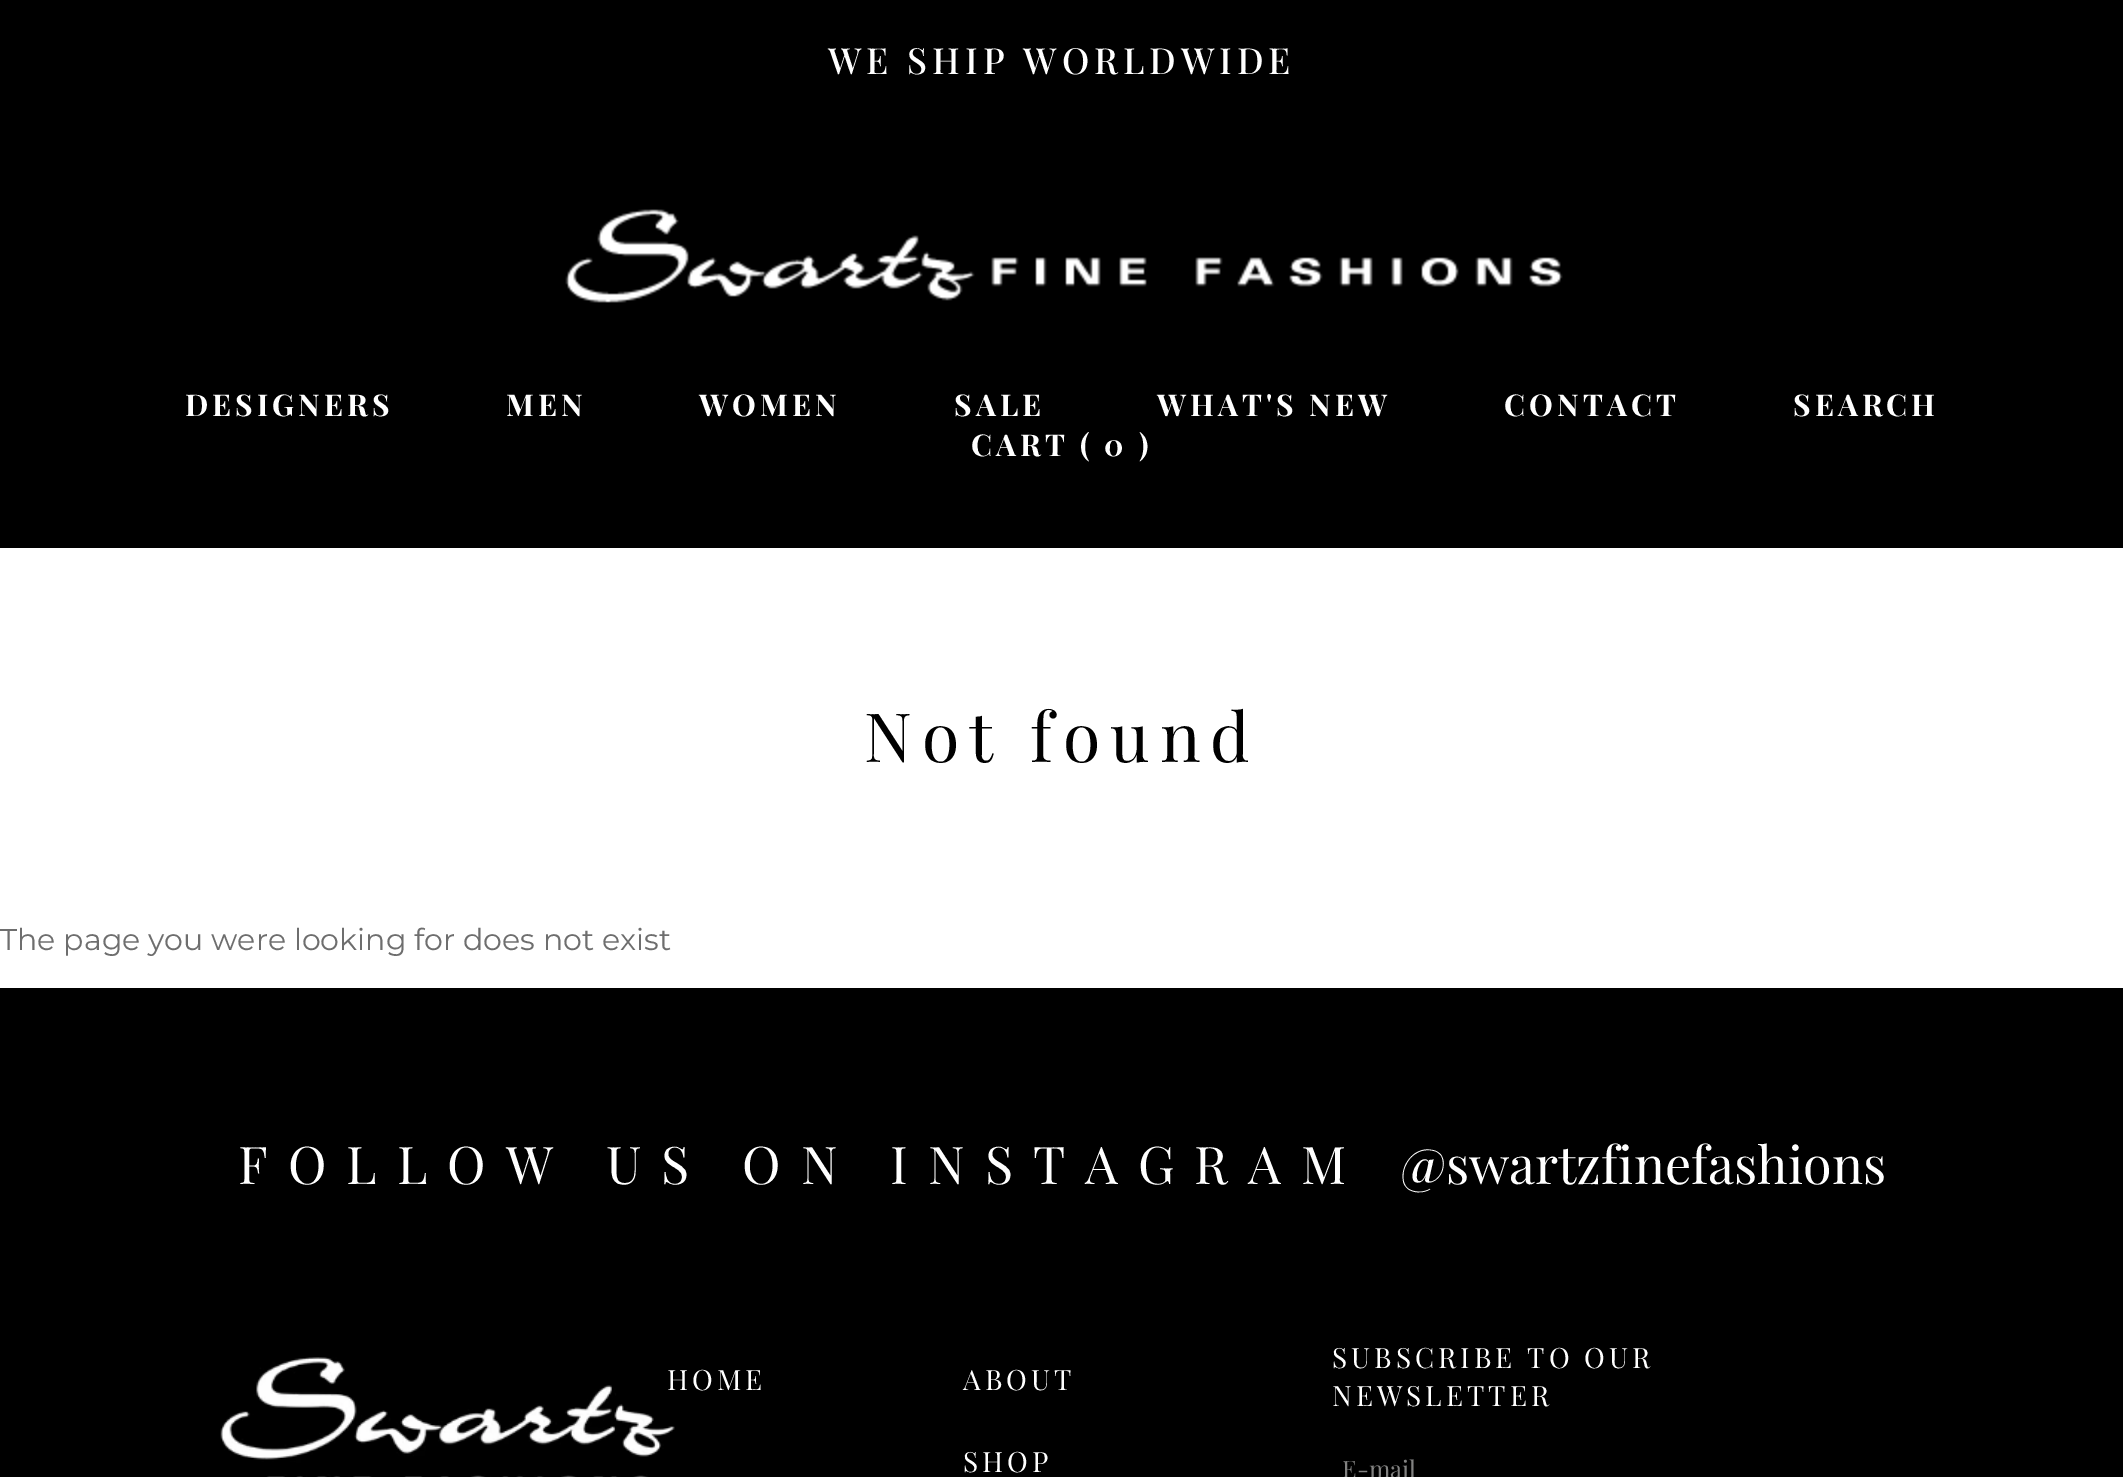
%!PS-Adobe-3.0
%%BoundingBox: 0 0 2123 1477
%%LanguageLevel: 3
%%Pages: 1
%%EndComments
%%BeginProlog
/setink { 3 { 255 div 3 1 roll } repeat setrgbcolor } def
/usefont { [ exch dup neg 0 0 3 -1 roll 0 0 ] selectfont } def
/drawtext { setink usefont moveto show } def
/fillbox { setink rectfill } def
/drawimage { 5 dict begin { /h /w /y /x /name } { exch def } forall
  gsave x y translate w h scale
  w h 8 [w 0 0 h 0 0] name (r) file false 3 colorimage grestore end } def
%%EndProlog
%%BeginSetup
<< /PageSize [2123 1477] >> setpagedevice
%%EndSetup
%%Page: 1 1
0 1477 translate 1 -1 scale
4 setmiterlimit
0 0 2123 1477 255 255 255 fillbox
0 0 2123 548 0 0 0 fillbox
/PlayfairDisplay-Medium 36 usefont
255 255 255 setink
828 74 moveto 5 0 (WE SHIP WORLDWIDE) ashow
(assets/img1.rgb) 565 209 998 94 drawimage
/PlayfairDisplay-Bold 30 usefont
185 416 moveto 4 0 (DESIGNERS) ashow
506 416 moveto 4 0 (MEN) ashow
699 416 moveto 4 0 (WOMEN) ashow
954 416 moveto 4 0 (SALE) ashow
1157 416 moveto 4 0 (WHAT'S NEW) ashow
1504 416 moveto 4 0 (CONTACT) ashow
1793 416 moveto 4 0 (SEARCH) ashow
971 456 moveto 4 0 (CART \( 0 \)) ashow
/PlayfairDisplay-Regular 68 usefont
0 0 0 setink
864 762 moveto 10 0 (Not found) ashow
(The page you were looking for does not exist) 0 950 /Montserrat-Regular 30 110 110 110 drawtext
0 988 2123 489 0 0 0 fillbox
/PlayfairDisplay-Regular 52 usefont
255 255 255 setink
238 1184 moveto 20 0 (FOLLOW US ON INSTAGRAM) ashow
(@swartzfinefashions) 1400 1184 /PlayfairDisplay-Regular 52 255 255 255 drawtext
(assets/img2.rgb) 220 1357 455 120 drawimage
/PlayfairDisplay-Regular 28 usefont
667 1390 moveto 4 0 (HOME) ashow
963 1390 moveto 4 0 (ABOUT) ashow
963 1472 moveto 4 0 (SHOP) ashow
1332 1368 moveto 4 0 (SUBSCRIBE TO OUR) ashow
1332 1406 moveto 4 0 (NEWSLETTER) ashow
(E-mail) 1342 1478 /PlayfairDisplay-Regular 24 130 130 129 drawtext
showpage
%%EOF
